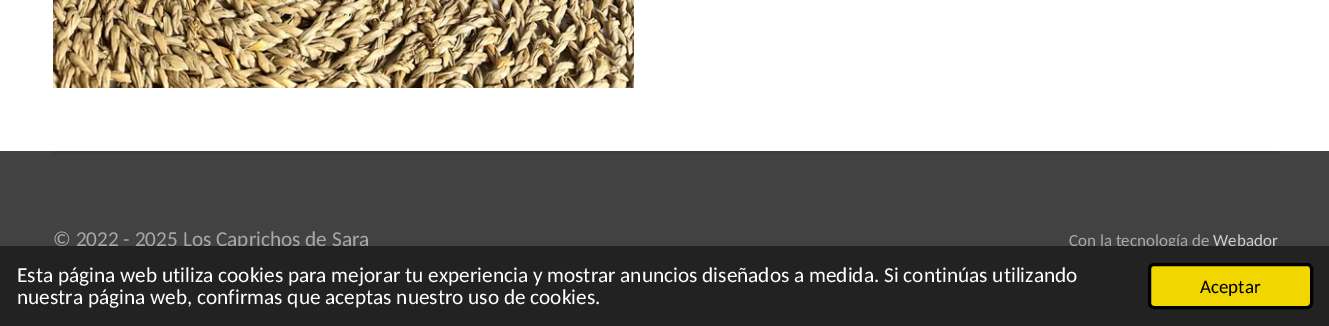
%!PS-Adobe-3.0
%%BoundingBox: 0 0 1329 326
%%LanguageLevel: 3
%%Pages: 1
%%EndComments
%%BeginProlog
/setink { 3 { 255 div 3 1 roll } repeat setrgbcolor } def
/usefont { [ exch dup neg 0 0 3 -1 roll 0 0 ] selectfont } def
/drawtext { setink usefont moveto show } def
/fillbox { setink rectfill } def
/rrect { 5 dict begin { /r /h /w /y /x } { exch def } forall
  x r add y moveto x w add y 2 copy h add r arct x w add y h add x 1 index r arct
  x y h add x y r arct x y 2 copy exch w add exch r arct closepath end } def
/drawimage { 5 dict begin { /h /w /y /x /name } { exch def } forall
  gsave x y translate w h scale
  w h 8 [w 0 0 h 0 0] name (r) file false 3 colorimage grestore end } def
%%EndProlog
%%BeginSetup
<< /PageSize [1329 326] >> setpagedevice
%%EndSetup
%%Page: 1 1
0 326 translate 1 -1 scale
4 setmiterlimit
0 0 1329 326 255 255 255 fillbox
(assets/img1.rgb) 53 0 581 88 drawimage
0 151 1329 95 66 66 66 fillbox
53 151 1225 3 61 61 61 fillbox
(© 2022 - 2025 Los Caprichos de Sara) 53 246 /Carlito-Regular 21.25 168 168 168 drawtext
(Con la tecnología de) 1069 246 /Carlito-Regular 17 168 168 168 drawtext
(Webador) 1213 246 /Carlito-Regular 17 206 206 206 drawtext
0 246 1329 80 34 34 34 fillbox
(Esta página web utiliza cookies para mejorar tu experiencia y mostrar anuncios diseñados a medida. Si continúas utilizando) 17 282 /Carlito-Regular 21.25 255 255 255 drawtext
(nuestra página web, confirmas que aceptas nuestro uso de cookies.) 17 304 /Carlito-Regular 21.25 255 255 255 drawtext
241 214 0 setink
1149.5 264.5 162 43 4.5 rrect gsave fill grestore
0 0 0 setink
3 setlinewidth
stroke
(Aceptar) 1200 293 /Carlito-Regular 19 0 0 0 drawtext
showpage
%%EOF
